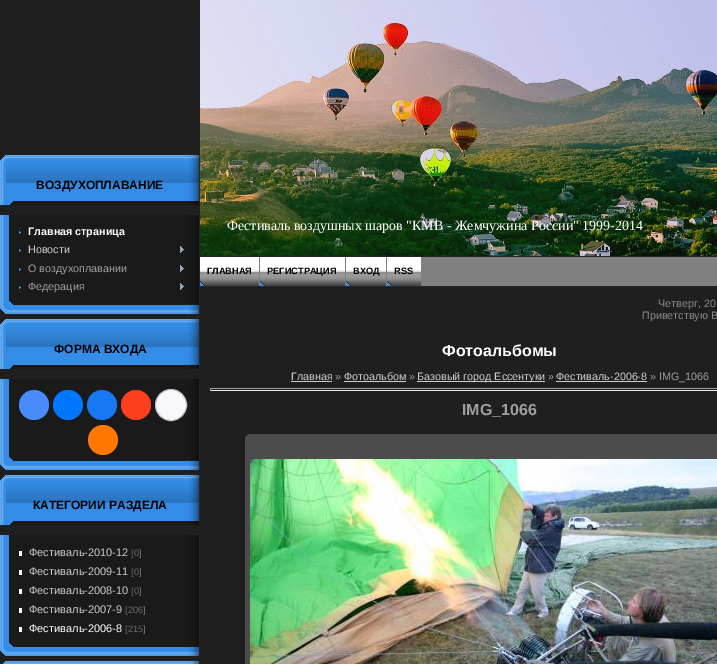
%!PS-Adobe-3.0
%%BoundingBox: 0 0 717 664
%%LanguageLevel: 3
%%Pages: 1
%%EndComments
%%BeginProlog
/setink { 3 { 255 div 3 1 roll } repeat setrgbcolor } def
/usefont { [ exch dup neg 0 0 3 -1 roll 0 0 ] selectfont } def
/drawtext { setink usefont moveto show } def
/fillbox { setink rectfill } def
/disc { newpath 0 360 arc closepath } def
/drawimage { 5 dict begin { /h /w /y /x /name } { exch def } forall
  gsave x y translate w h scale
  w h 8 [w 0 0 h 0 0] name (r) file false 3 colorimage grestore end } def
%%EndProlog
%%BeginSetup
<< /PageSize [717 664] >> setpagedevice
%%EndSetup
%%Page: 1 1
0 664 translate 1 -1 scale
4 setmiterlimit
0 0 717 664 31 31 31 fillbox
(assets/img1.rgb) 0 155 200 50 drawimage
(ВОЗДУХОПЛАВАНИЕ) 36 189 /LiberationSans-Bold 12 0 0 0 drawtext
(assets/img2.rgb) 0 215 200 99 drawimage
(assets/img3.rgb) 19 231 2 3 drawimage
(Главная страница) 28 235 /LiberationSans-Bold 10.75 255 255 255 drawtext
(assets/img3.rgb) 19 249 2 3 drawimage
(Новости) 28 253 /LiberationSans-Regular 10.75 204 204 204 drawtext
(assets/img4.rgb) 180 246 4 7 drawimage
(assets/img3.rgb) 19 268 2 3 drawimage
(О воздухоплавании) 28 272 /LiberationSans-Regular 10.75 159 159 159 drawtext
(assets/img4.rgb) 180 265 4 7 drawimage
(assets/img3.rgb) 19 286 2 3 drawimage
(Федерация) 28 290 /LiberationSans-Regular 10.75 159 159 159 drawtext
(assets/img4.rgb) 180 283 4 7 drawimage
(assets/img1.rgb) 0 319 200 50 drawimage
(ФОРМА ВХОДА) 54 353 /LiberationSans-Bold 12 0 0 0 drawtext
(assets/img5.rgb) 0 379 200 91 drawimage
73 139 250 setink
34 405 15 disc fill
0 119 255 setink
68 405 15 disc fill
24 119 242 setink
102 405 15 disc fill
252 63 29 setink
136 405 15 disc fill
248 248 252 setink
171 405 15.5 disc gsave fill grestore
196 196 196 setink
stroke
255 119 0 setink
103 440 15 disc fill
(assets/img1.rgb) 0 475 200 50 drawimage
(КАТЕГОРИИ РАЗДЕЛА) 33 509 /LiberationSans-Bold 12 0 0 0 drawtext
(assets/img6.rgb) 0 535 200 121 drawimage
19 551 3 5 255 255 255 fillbox
(Фестиваль-2010-12) 29 556 /LiberationSans-Regular 11 204 204 204 drawtext
([0]) 131 556 /LiberationSans-Regular 9.25 105 105 105 drawtext
19 570 3 5 255 255 255 fillbox
(Фестиваль-2009-11) 29 575 /LiberationSans-Regular 11 204 204 204 drawtext
([0]) 131 575 /LiberationSans-Regular 9.25 105 105 105 drawtext
19 589 3 5 255 255 255 fillbox
(Фестиваль-2008-10) 29 594 /LiberationSans-Regular 11 204 204 204 drawtext
([0]) 131 594 /LiberationSans-Regular 9.25 105 105 105 drawtext
19 608 3 5 255 255 255 fillbox
(Фестиваль-2007-9) 29 613 /LiberationSans-Regular 11 204 204 204 drawtext
([206]) 125 613 /LiberationSans-Regular 9.25 105 105 105 drawtext
19 627 3 5 255 255 255 fillbox
(Фестиваль-2006-8) 29 632 /LiberationSans-Regular 11 255 255 255 drawtext
([215]) 125 632 /LiberationSans-Regular 9.25 105 105 105 drawtext
(assets/img7.rgb) 3 661 197 3 drawimage
(assets/img8.rgb) 200 0 517 256 drawimage
(Фестиваль воздушных шаров "КМВ - Жемчужина России" 1999-2014) 227 230 /LiberationSerif-Regular 14 255 255 255 drawtext
259 257 458 29 128 128 128 fillbox
200 256 517 1 39 36 43 fillbox
200 286 517 1 39 36 43 fillbox
(assets/img9.rgb) 200 257 59 29 drawimage
(ГЛАВНАЯ) 207 274 /LiberationSans-Bold 9.25 0 0 0 drawtext
(assets/img10.rgb) 260 257 85 29 drawimage
(РЕГИСТРАЦИЯ) 267 274 /LiberationSans-Bold 9.25 0 0 0 drawtext
(assets/img11.rgb) 346 257 40 29 drawimage
(ВХОД) 353 274 /LiberationSans-Bold 9.25 0 0 0 drawtext
(assets/img12.rgb) 387 257 34 29 drawimage
(RSS) 394 274 /LiberationSans-Bold 9.25 0 0 0 drawtext
(Четверг, 20.) 658 307 /LiberationSans-Regular 10.75 137 137 137 drawtext
(Приветствую В) 642 319 /LiberationSans-Regular 10.75 137 137 137 drawtext
(Фотоальбомы) 442 356 /LiberationSans-Bold 16 255 255 255 drawtext
(Главная) 291 380 /LiberationSans-Regular 10.75 204 204 204 drawtext
291 381 41 1 204 204 204 fillbox
(») 335 380 /LiberationSans-Regular 10.75 159 159 159 drawtext
(Фотоальбом) 344 380 /LiberationSans-Regular 10.75 204 204 204 drawtext
344 381 62 1 204 204 204 fillbox
(») 409 380 /LiberationSans-Regular 10.75 159 159 159 drawtext
417 381 128 1 204 204 204 fillbox
(Базовый город Ессентуки) 417 380 /LiberationSans-Regular 10.75 204 204 204 drawtext
(») 548 380 /LiberationSans-Regular 10.75 159 159 159 drawtext
(Фестиваль-2006-8) 556 380 /LiberationSans-Regular 10.75 204 204 204 drawtext
556 381 91 1 204 204 204 fillbox
(» IMG_1066) 650 380 /LiberationSans-Regular 10.75 159 159 159 drawtext
210 388 507 1 159 159 159 fillbox
210 390 507 1 238 238 238 fillbox
210 388 1 3 159 159 159 fillbox
(IMG_1066) 462 415 /LiberationSans-Bold 16 159 159 159 drawtext
(assets/img13.rgb) 245 434 472 230 drawimage
(assets/img14.rgb) 250 459 467 205 drawimage
showpage
%%EOF
